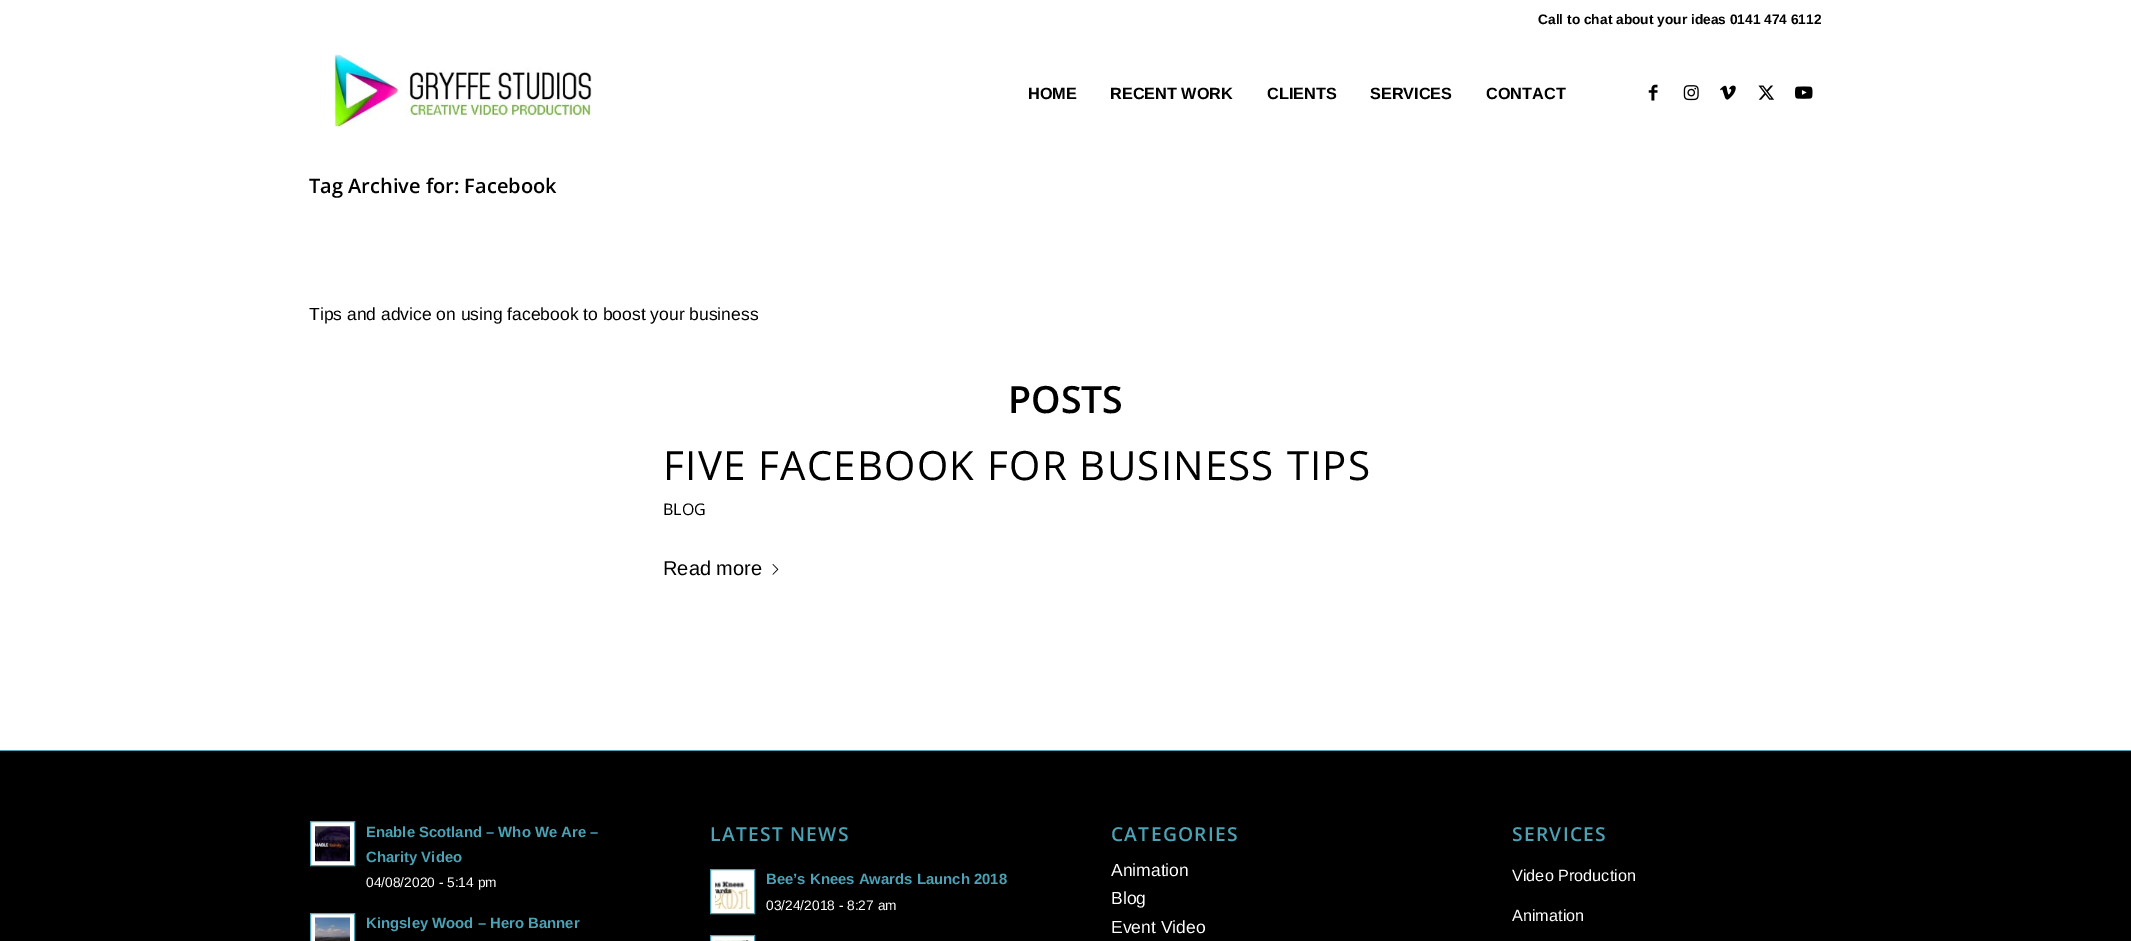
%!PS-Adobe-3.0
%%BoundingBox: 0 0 2131 941
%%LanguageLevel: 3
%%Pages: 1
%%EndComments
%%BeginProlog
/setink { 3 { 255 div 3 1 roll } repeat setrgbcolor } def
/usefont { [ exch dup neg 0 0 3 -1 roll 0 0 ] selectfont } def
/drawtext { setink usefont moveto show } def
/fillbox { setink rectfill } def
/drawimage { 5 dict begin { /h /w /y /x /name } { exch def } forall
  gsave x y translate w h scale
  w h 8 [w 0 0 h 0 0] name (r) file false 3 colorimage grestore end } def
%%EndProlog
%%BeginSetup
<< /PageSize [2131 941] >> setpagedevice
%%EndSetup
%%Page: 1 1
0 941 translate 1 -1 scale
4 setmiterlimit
0 0 2131 941 255 255 255 fillbox
(Call to chat about your ideas 0141 474 6112) 1538 24 /LiberationSans-Bold 13.75 0 0 0 drawtext
(assets/img1.rgb) 333 54 259 74 drawimage
(HOME) 1028 99 /LiberationSans-Bold 16.25 0 0 0 drawtext
(RECENT WORK) 1110 99 /LiberationSans-Bold 16.25 0 0 0 drawtext
(CLIENTS) 1267 99 /LiberationSans-Bold 16.25 0 0 0 drawtext
(SERVICES) 1370 99 /LiberationSans-Bold 16.25 0 0 0 drawtext
(CONTACT) 1486 99 /LiberationSans-Bold 16.25 0 0 0 drawtext
(assets/img2.rgb) 1648 84 10 17 drawimage
(assets/img3.rgb) 1683 85 16 16 drawimage
(assets/img4.rgb) 1720 85 16 15 drawimage
(assets/img5.rgb) 1758 85 16 15 drawimage
(assets/img6.rgb) 1795 86 18 13 drawimage
(Tag Archive for: Facebook) 309 193 /OpenSans-SemiBold 20 0 0 0 drawtext
(Tips and advice on using facebook to boost your business) 309 320 /LiberationSans-Regular 17.5 0 0 0 drawtext
(POSTS) 1008 413 /OpenSans-SemiBold 37.5 0 0 0 drawtext
/OpenSans-Regular 40.25 usefont
663 480 moveto 1.25 0 (FIVE FACEBOOK FOR BUSINESS TIPS) ashow
(BLOG) 663 515 /OpenSans-Regular 16 0 0 0 drawtext
(Read more) 663 575 /LiberationSans-Regular 20 0 0 0 drawtext
(assets/img7.rgb) 772 564 7 11 drawimage
0 751 2131 190 0 0 0 fillbox
0 750 2131 1 76 162 181 fillbox
255 255 255 setink
310.5 821.5 moveto 354.5 821.5 lineto 354.5 865.5 lineto 310.5 865.5 lineto closepath gsave fill grestore
76 162 181 setink
stroke
(assets/img8.rgb) 315 826 35 36 drawimage
(Enable Scotland – Who We Are –) 366 837 /LiberationSans-Bold 14.9 76 162 181 drawtext
(Charity Video) 366 862 /LiberationSans-Bold 14.9 76 162 181 drawtext
(04/08/2020 - 5:14 pm) 366 887 /LiberationSans-Regular 13.75 255 255 255 drawtext
310.5 913.5 moveto 354.5 913.5 lineto 354.5 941.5 lineto 310.5 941.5 lineto closepath gsave fill grestore
76 162 181 setink
stroke
(assets/img9.rgb) 315 917 35 24 drawimage
(Kingsley Wood – Hero Banner) 366 928 /LiberationSans-Bold 14.9 76 162 181 drawtext
/OpenSans-SemiBold 19.25 usefont
710 841 moveto 1.25 0 (LATEST NEWS) ashow
255 255 255 setink
710.5 869.5 moveto 754.5 869.5 lineto 754.5 913.5 lineto 710.5 913.5 lineto closepath gsave fill grestore
76 162 181 setink
stroke
(assets/img10.rgb) 715 881 35 28 drawimage
(Bee’s Knees Awards Launch 2018) 766 884 /LiberationSans-Bold 14.9 76 162 181 drawtext
(03/24/2018 - 8:27 am) 766 910 /LiberationSans-Regular 13.75 255 255 255 drawtext
710.5 935.5 moveto 754.5 935.5 lineto 754.5 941.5 lineto 710.5 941.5 lineto closepath gsave fill grestore
76 162 181 setink
stroke
(assets/img11.rgb) 715 940 35 1 drawimage
/OpenSans-SemiBold 19.25 usefont
1111 841 moveto 1.25 0 (CATEGORIES) ashow
(Animation) 1111 876 /LiberationSans-Regular 17.5 255 255 255 drawtext
(Blog) 1111 904 /LiberationSans-Regular 17.5 255 255 255 drawtext
(Event Video) 1111 933 /LiberationSans-Regular 17.5 255 255 255 drawtext
/OpenSans-SemiBold 19.25 usefont
76 162 181 setink
1512 841 moveto 1.25 0 (SERVICES) ashow
(Video Production) 1512 881 /LiberationSans-Regular 16.25 255 255 255 drawtext
(Animation) 1512 921 /LiberationSans-Regular 16.25 255 255 255 drawtext
showpage
%%EOF
